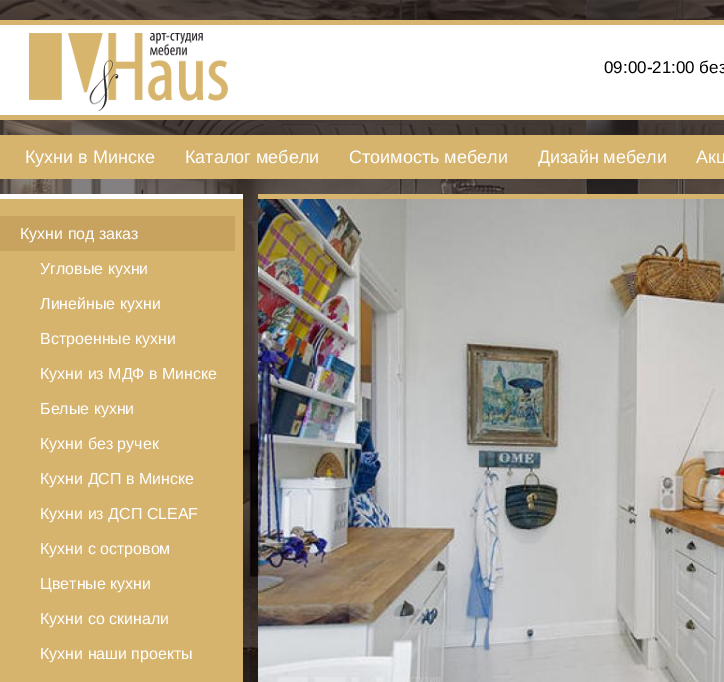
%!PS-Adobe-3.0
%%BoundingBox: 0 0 724 682
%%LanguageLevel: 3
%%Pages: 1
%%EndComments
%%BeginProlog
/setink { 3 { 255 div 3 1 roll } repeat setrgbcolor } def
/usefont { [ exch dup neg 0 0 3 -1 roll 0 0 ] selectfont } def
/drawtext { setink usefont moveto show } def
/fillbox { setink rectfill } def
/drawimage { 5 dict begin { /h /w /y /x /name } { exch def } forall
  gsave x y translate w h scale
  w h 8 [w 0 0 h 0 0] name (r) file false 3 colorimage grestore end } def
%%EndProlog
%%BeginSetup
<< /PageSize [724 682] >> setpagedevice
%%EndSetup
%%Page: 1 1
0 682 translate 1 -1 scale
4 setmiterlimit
0 0 724 682 255 255 255 fillbox
(assets/img1.rgb) 0 0 724 682 drawimage
0 25 724 90 255 255 255 fillbox
0 20 724 5 215 180 110 fillbox
0 115 724 5 215 180 110 fillbox
(assets/img2.rgb) 29 33 199 78 drawimage
(09:00-21:00 без) 604 73 /LiberationSans-Regular 17 0 0 0 drawtext
0 135 724 44 215 180 110 fillbox
(Кухни в Минске) 25 163 /LiberationSans-Regular 18 255 255 255 drawtext
(Каталог мебели) 185 163 /LiberationSans-Regular 18 255 255 255 drawtext
(Стоимость мебели) 349 163 /LiberationSans-Regular 18 255 255 255 drawtext
(Дизайн мебели) 538 163 /LiberationSans-Regular 18 255 255 255 drawtext
(Акц) 696 163 /LiberationSans-Regular 18 255 255 255 drawtext
0 199 243 483 215 180 110 fillbox
0 194 243 5 255 255 255 fillbox
0 216 235 35 199 163 95 fillbox
(Кухни под заказ) 20 239 /LiberationSans-Regular 16 255 255 255 drawtext
(Угловые кухни) 40 274 /LiberationSans-Regular 16 255 255 255 drawtext
(Линейные кухни) 40 309 /LiberationSans-Regular 16 255 255 255 drawtext
(Встроенные кухни) 40 344 /LiberationSans-Regular 16 255 255 255 drawtext
(Кухни из МДФ в Минске) 40 379 /LiberationSans-Regular 16 255 255 255 drawtext
(Белые кухни) 40 414 /LiberationSans-Regular 16 255 255 255 drawtext
(Кухни без ручек) 40 449 /LiberationSans-Regular 16 255 255 255 drawtext
(Кухни ДСП в Минске) 40 484 /LiberationSans-Regular 16 255 255 255 drawtext
(Кухни из ДСП СLEAF) 40 519 /LiberationSans-Regular 16 255 255 255 drawtext
(Кухни с островом) 40 554 /LiberationSans-Regular 16 255 255 255 drawtext
(Цветные кухни) 40 589 /LiberationSans-Regular 16 255 255 255 drawtext
(Кухни со скинали) 40 624 /LiberationSans-Regular 16 255 255 255 drawtext
(Кухни наши проекты) 40 659 /LiberationSans-Regular 16 255 255 255 drawtext
258 194 466 5 215 180 110 fillbox
(assets/img3.rgb) 258 199 466 483 drawimage
showpage
%%EOF
